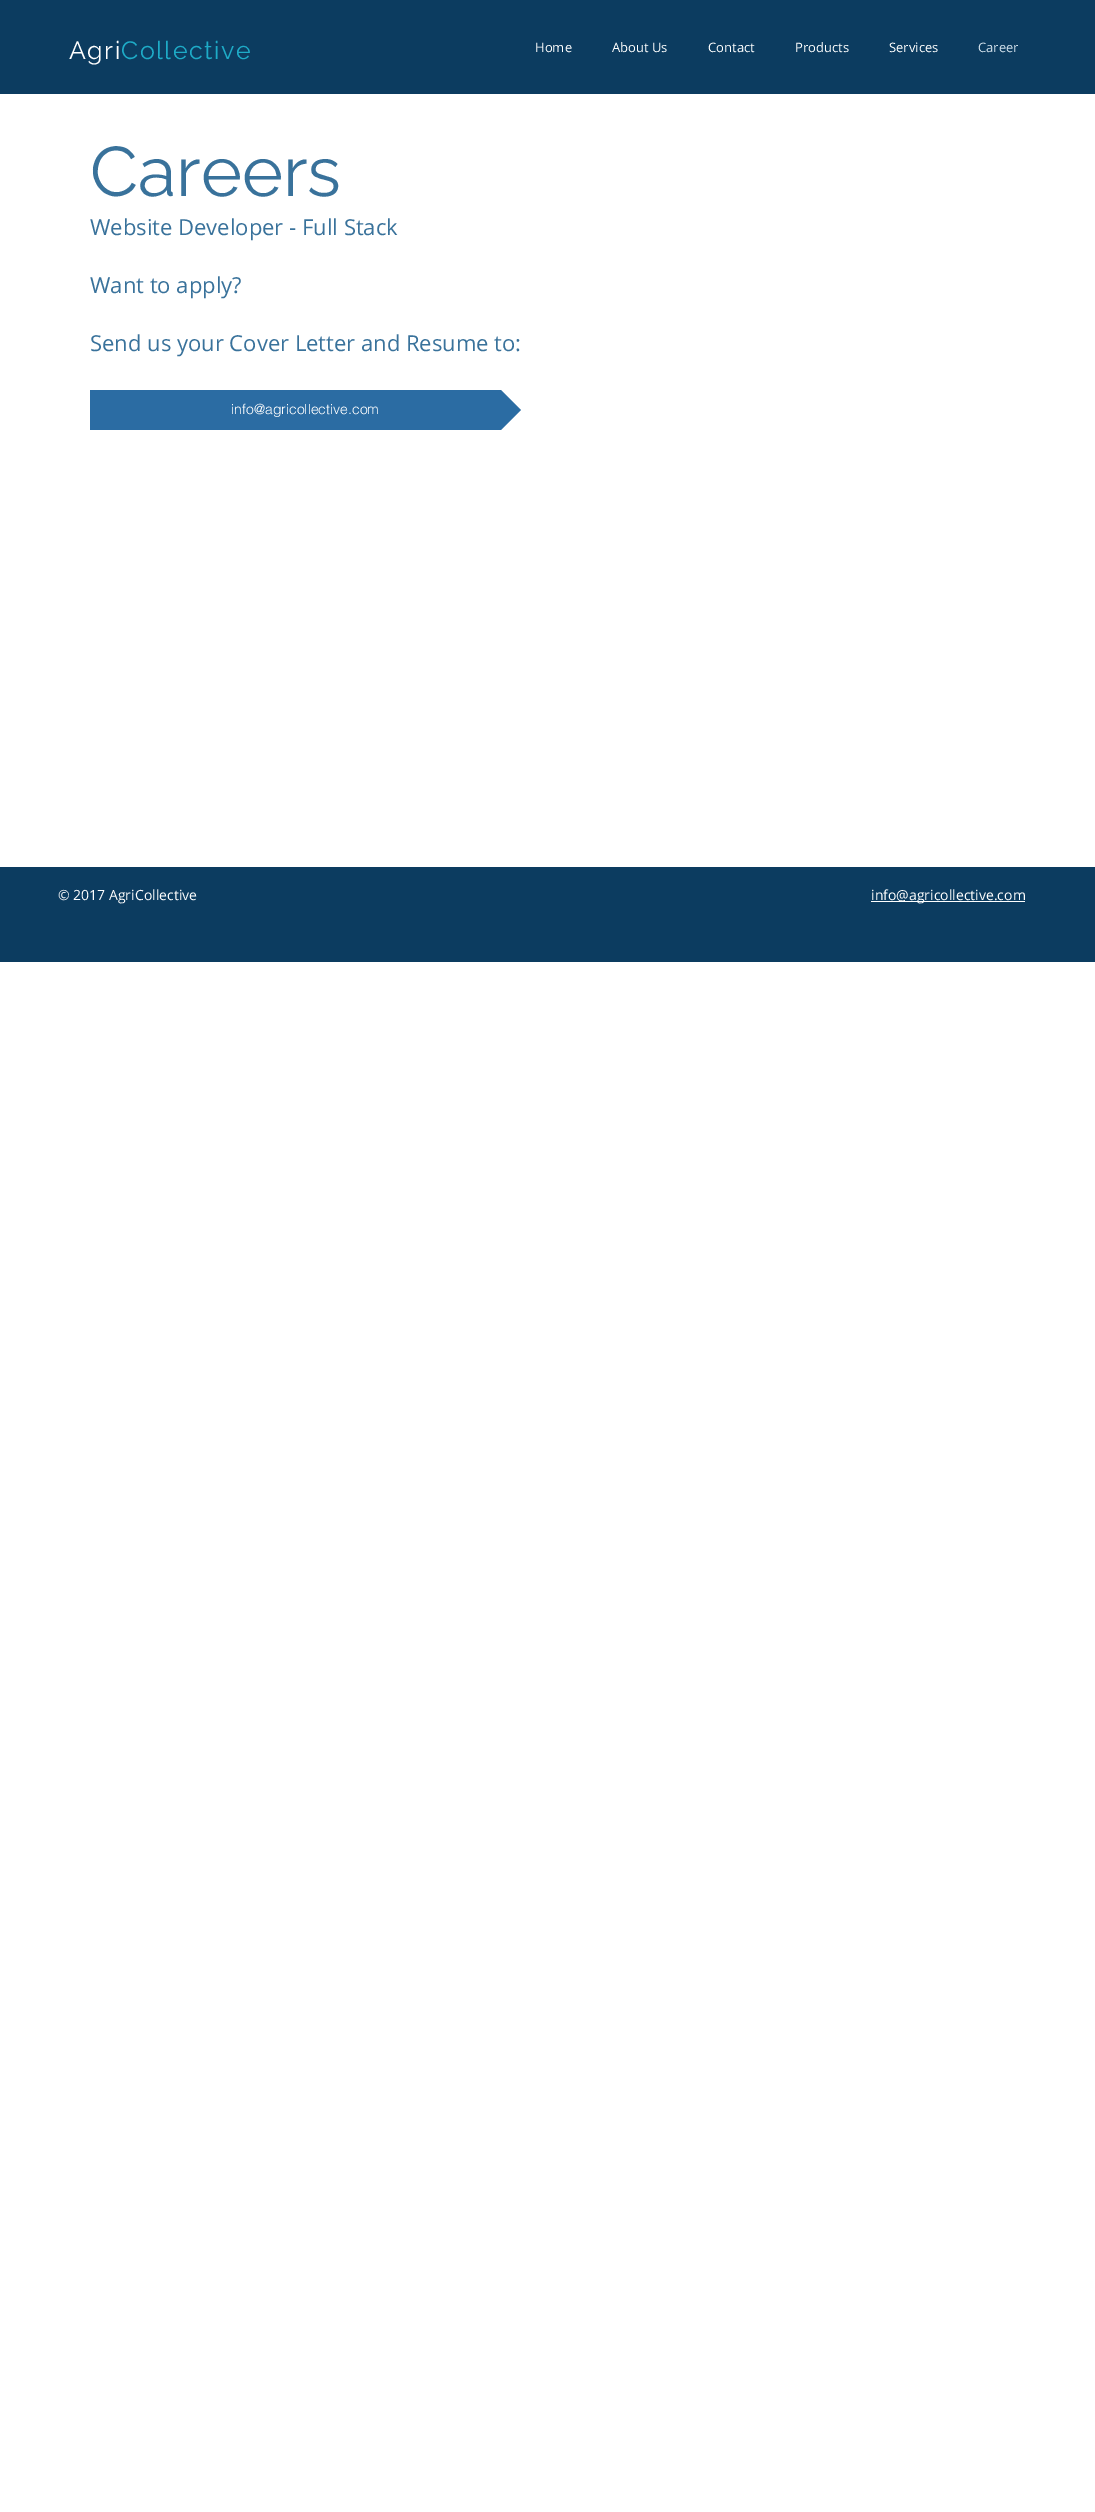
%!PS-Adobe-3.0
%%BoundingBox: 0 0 1095 2512
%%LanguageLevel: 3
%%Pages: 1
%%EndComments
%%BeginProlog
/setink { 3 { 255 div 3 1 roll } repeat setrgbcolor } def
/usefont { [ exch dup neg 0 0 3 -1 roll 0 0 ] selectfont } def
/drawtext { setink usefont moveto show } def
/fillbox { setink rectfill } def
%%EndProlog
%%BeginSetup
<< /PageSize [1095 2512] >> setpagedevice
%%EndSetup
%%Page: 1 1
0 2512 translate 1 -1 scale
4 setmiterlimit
0 0 1095 2512 255 255 255 fillbox
0 0 1095 94 12 60 96 fillbox
/Raleway-Regular 25 usefont
255 255 255 setink
69 59 moveto 1.5 0 (Agri) ashow
30 171 199 setink
121 59 moveto 1.5 0 (Collective) ashow
(Home) 535 52 /OpenSans-Regular 13 255 255 255 drawtext
(About Us) 612 52 /OpenSans-Regular 13 255 255 255 drawtext
(Contact) 708 52 /OpenSans-Regular 13 255 255 255 drawtext
(Products) 795 52 /OpenSans-Regular 13 255 255 255 drawtext
(Services) 889 52 /OpenSans-Regular 13 255 255 255 drawtext
(Career) 978 52 /OpenSans-Regular 13 209 224 235 drawtext
(Careers) 90 196 /Raleway-Regular 70 57 114 155 drawtext
(Website Developer - Full Stack) 90 235 /OpenSans-Regular 22 57 114 155 drawtext
(Want to apply?) 90 293 /OpenSans-Regular 22 57 114 155 drawtext
(Send us your Cover Letter and Resume to:) 90 351 /OpenSans-Regular 22 57 114 155 drawtext
90 390 381 40 43 108 163 fillbox
gsave
90 390 431 40 rectclip
521 410 moveto 471 410 lineto 471 360 lineto closepath 471 410 moveto 521 410 lineto 471 460 lineto closepath fill
grestore
(info@agricollective.com) 231 414 /helvetica-Light 14 255 255 255 drawtext
0 867 1095 95 12 60 96 fillbox
(© 2017 AgriCollective) 58 900 /OpenSans-Regular 14 255 255 255 drawtext
871 901 154 1 255 255 255 fillbox
(info@agricollective.com) 871 900 /OpenSans-Regular 14 255 255 255 drawtext
showpage
%%EOF
